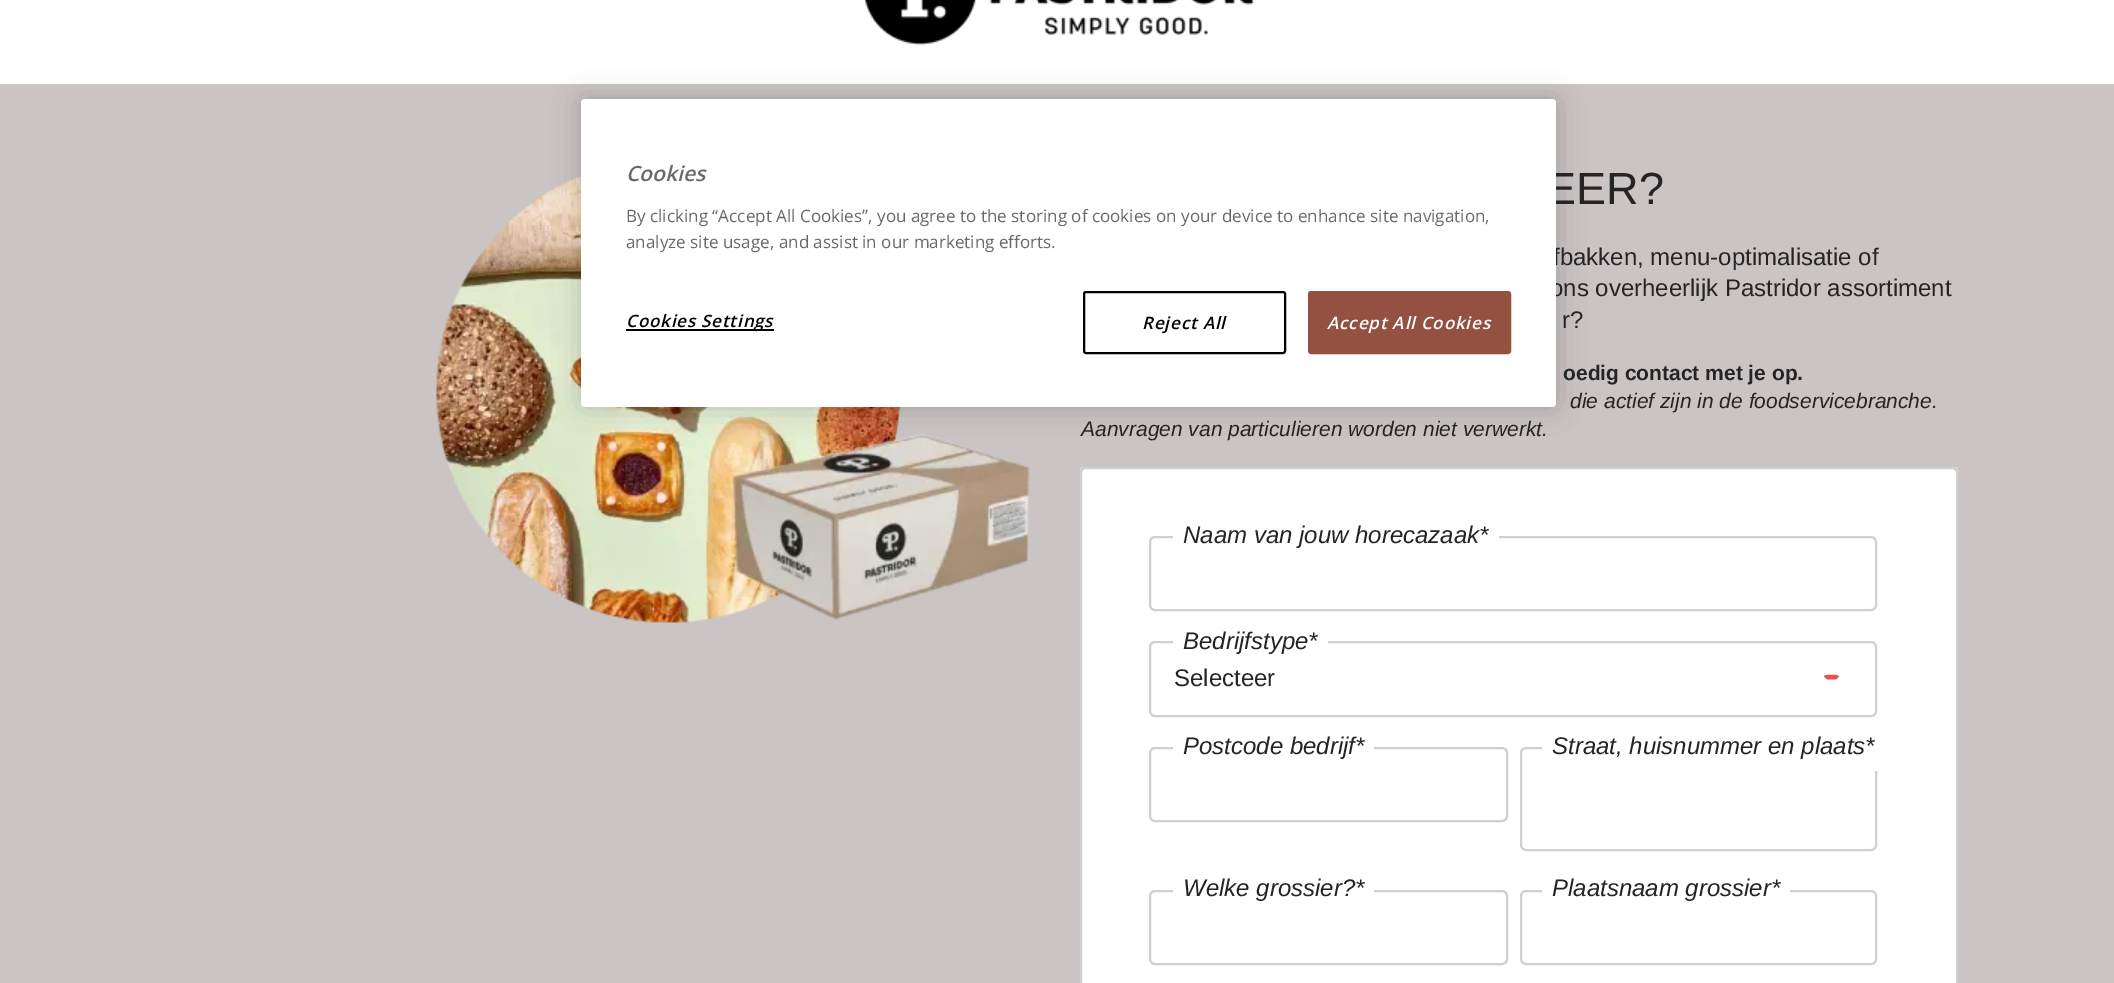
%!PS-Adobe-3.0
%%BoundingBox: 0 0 2114 983
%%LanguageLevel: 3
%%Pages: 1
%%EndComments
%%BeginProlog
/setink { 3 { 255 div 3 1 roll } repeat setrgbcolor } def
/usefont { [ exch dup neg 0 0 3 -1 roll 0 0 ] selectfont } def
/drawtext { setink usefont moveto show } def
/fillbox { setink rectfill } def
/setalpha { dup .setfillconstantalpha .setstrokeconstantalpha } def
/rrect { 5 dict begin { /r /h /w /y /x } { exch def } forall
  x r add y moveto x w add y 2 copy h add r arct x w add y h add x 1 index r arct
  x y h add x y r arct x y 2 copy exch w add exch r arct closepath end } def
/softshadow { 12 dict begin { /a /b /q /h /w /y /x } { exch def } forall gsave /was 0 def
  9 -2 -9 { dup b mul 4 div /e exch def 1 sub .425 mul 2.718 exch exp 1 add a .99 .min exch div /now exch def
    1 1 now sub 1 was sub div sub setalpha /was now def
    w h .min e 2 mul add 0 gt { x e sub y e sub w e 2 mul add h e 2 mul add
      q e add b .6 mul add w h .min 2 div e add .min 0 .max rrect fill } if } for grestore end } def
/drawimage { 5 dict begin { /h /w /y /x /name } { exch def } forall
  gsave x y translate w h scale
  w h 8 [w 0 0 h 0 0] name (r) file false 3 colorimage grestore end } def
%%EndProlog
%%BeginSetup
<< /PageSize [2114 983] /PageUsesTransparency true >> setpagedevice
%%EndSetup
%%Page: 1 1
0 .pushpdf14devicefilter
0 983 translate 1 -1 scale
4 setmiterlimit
0 0 2114 983 255 255 255 fillbox
0 84 2114 899 202 197 196 fillbox
(assets/img2.rgb) 436 175 594 448 drawimage
0 0 0 setink
581 99 975 308 4 13.5 0.2 softshadow
(EER?) 1546 204 /LiberationSans-Regular 45 37 36 37 drawtext
(fbakken, menu-optimalisatie of) 1553 265 /LiberationSans-Regular 24 37 36 37 drawtext
(ons overheerlijk Pastridor assortiment) 1550 296 /LiberationSans-Regular 24 37 36 37 drawtext
255 255 255 setink
581 99 975 308 4 rrect fill
(Cookies) 626 181 /OpenSans-SemiBoldItalic 21 105 105 105 drawtext
(By clicking “Accept All Cookies”, you agree to the storing of cookies on your device to enhance site navigation,) 626 222 /OpenSans-Regular 17.07 105 105 105 drawtext
(analyze site usage, and assist in our marketing efforts.) 626 248 /OpenSans-Regular 17.07 105 105 105 drawtext
626 329 148 2 0 0 0 fillbox
/OpenSans-SemiBoldItalic 17.07 usefont
626 327 moveto 0.8 0 (Cookies Settings) ashow
2 setlinewidth
1084 292 201 61 2 rrect stroke
1142 329 moveto 0.8 0 (Reject All) ashow
148 80 64 setink
1309 292 201 61 2 rrect gsave fill grestore
stroke
255 255 255 setink
1327 329 moveto 0.8 0 (Accept All Cookies) ashow
(assets/img1.rgb) 864 0 390 46 drawimage
(r?) 1562 328 /LiberationSans-Regular 24 37 36 37 drawtext
(oedig contact met je op.) 1563 380 /LiberationSans-Bold 21 37 36 37 drawtext
(die actief zijn in de foodservicebranche.) 1570 408 /LiberationSans-Italic 21 37 36 37 drawtext
(Aanvragen van particulieren worden niet verwerkt.) 1081 436 /LiberationSans-Italic 21 37 36 37 drawtext
1080 467 878 6 227 207 206 fillbox
255 255 255 setink
1081 468 876 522 5 rrect gsave fill grestore
208 208 208 setink
stroke
1150 537 726 73 5 rrect stroke
255 255 255 setink
1173 512 326 48 6 rrect fill
(Naam van jouw horecazaak*) 1183 543 /LiberationSans-Italic 24 37 36 37 drawtext
208 208 208 setink
1150 642 726 74 5 rrect stroke
255 255 255 setink
1173 617 155 48 6 rrect fill
(Bedrijfstype*) 1183 649 /LiberationSans-Italic 24 37 36 37 drawtext
(Selecteer) 1174 686 /LiberationSans-Regular 24 37 36 37 drawtext
235 78 84 setink
1827 675 moveto 1830 675 1837 674 1839 676.5 curveto 1836 679.5 lineto 1827 679.5 lineto 1824 676.5 lineto 1824.5 675.5 1825.5 675 1827 675 curveto closepath fill
208 208 208 setink
1150 748 357 73 5 rrect stroke
255 255 255 setink
1173 723 201 48 6 rrect fill
(Postcode bedrijf*) 1183 754 /LiberationSans-Italic 24 37 36 37 drawtext
208 208 208 setink
1521 748 355 102 5 rrect stroke
255 255 255 setink
1542 723 342 48 6 rrect fill
(Straat, huisnummer en plaats*) 1552 754 /LiberationSans-Italic 24 37 36 37 drawtext
208 208 208 setink
1150 891 357 73 5 rrect stroke
255 255 255 setink
1173 866 201 48 6 rrect fill
(Welke grossier?*) 1183 896 /LiberationSans-Italic 24 37 36 37 drawtext
208 208 208 setink
1521 891 355 73 5 rrect stroke
255 255 255 setink
1542 866 248 48 6 rrect fill
(Plaatsnaam grossier*) 1552 896 /LiberationSans-Italic 24 37 36 37 drawtext
.poppdf14devicefilter showpage
%%EOF
